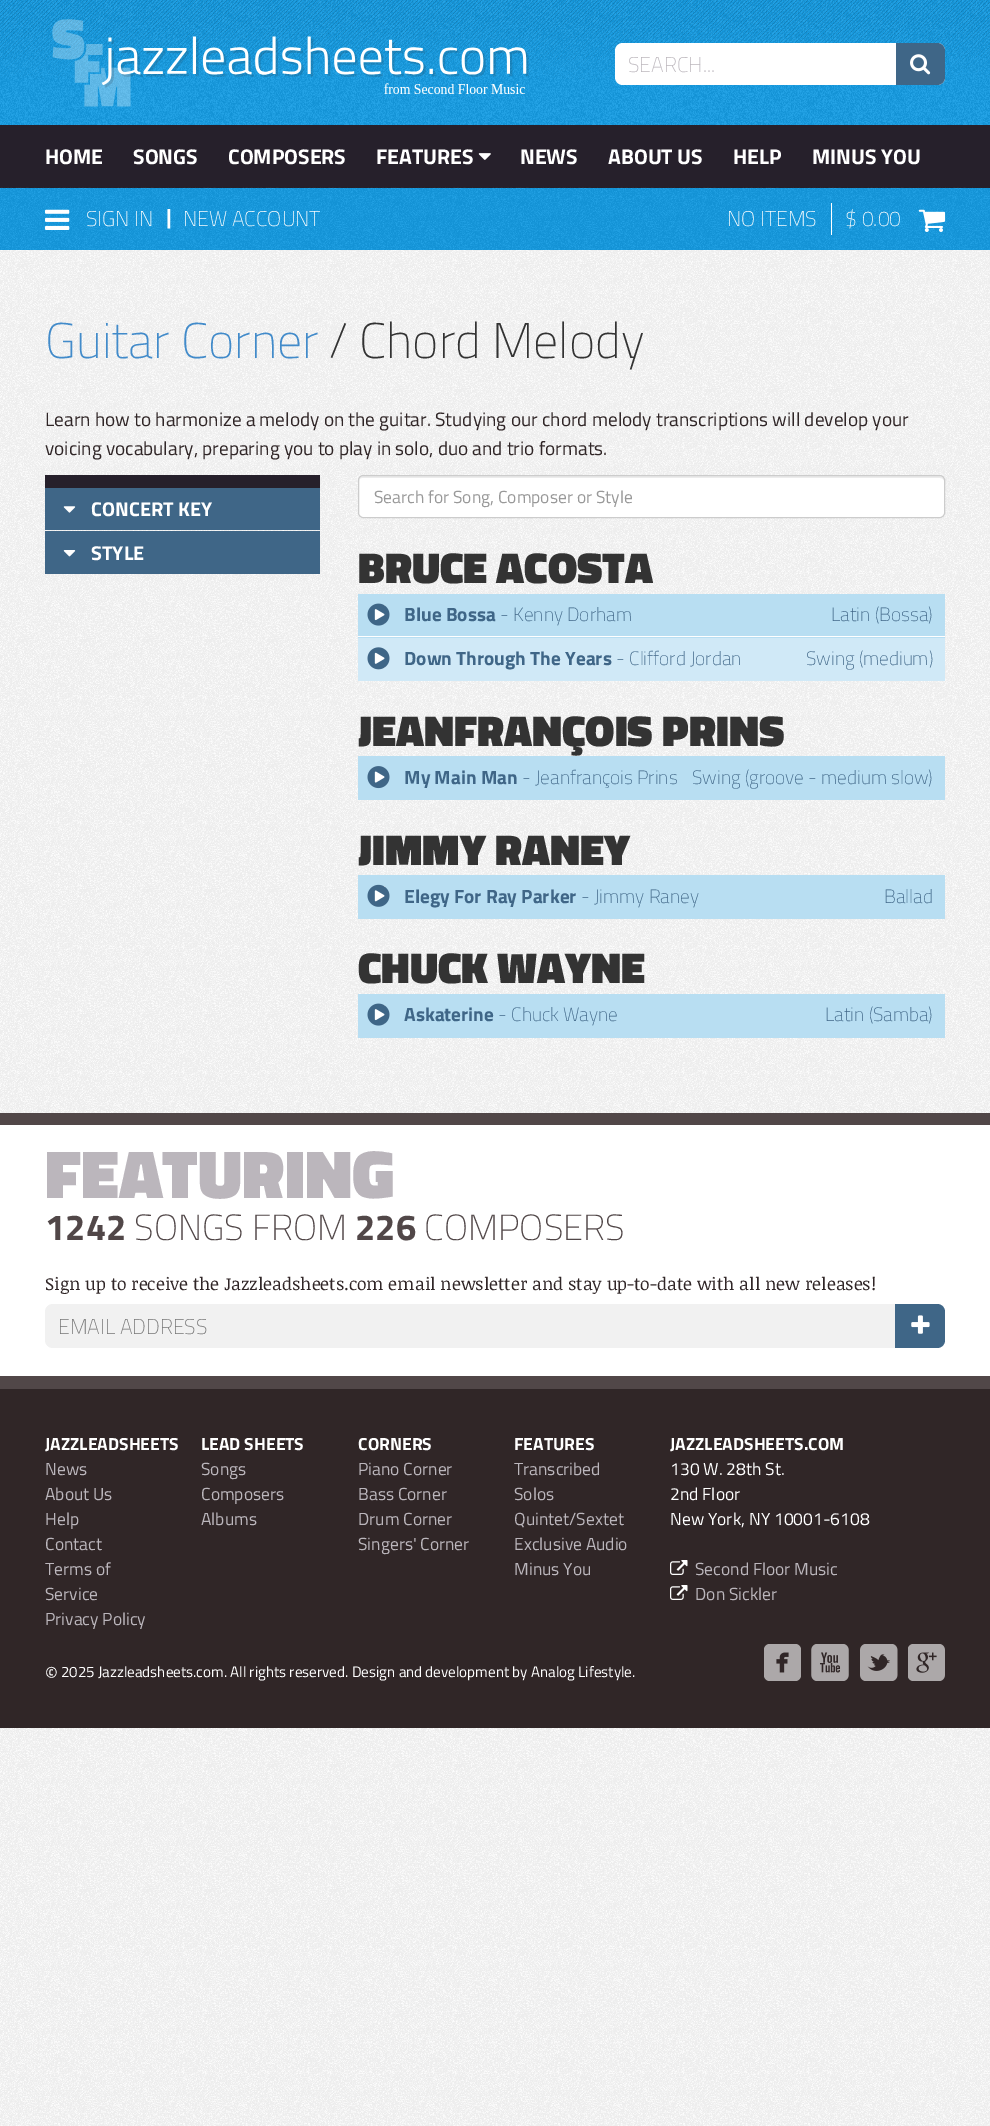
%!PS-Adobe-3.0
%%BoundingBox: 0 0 990 2126
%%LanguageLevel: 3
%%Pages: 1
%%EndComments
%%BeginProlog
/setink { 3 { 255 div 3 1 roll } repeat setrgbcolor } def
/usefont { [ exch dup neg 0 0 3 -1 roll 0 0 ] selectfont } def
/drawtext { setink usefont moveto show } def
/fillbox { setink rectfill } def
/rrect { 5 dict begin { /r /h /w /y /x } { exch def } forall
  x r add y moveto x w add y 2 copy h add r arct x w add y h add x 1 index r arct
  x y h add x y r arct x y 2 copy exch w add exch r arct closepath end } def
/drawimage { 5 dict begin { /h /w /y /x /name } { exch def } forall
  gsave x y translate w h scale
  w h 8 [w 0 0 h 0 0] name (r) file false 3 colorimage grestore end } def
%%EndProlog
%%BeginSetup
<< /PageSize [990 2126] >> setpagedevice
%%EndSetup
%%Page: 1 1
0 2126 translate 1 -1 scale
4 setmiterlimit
0 0 990 2126 255 255 255 fillbox
(assets/img1.rgb) 0 250 990 1876 drawimage
0 0 990 125 20 157 229 fillbox
(assets/img2.rgb) 0 0 990 125 drawimage
(assets/img3.rgb) 52 19 477 88 drawimage
255 255 255 setink
623 43 moveto 890 43 lineto 890 85 lineto 623 85 lineto 618.5 85 615 81.5 615 77 curveto 615 51 lineto 615 46.5 618.5 43 623 43 curveto closepath fill
(SEARCH...) 628 72 /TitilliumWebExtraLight-ExtraLight 21.25 187 182 188 drawtext
255 255 255 setink
890 43 moveto 937 43 lineto 941.5 43 945 46.5 945 51 curveto 945 77 lineto 945 81.5 941.5 85 937 85 curveto 890 85 lineto closepath fill
63 102 135 setink
896 43 moveto 937 43 lineto 941.5 43 945 46.5 945 51 curveto 945 77 lineto 945 81.5 941.5 85 937 85 curveto 896 85 lineto closepath fill
(assets/img4.rgb) 910 54 21 21 drawimage
0 125 990 63 38 32 43 fillbox
(HOME) 45 164 /TitilliumWeb-Bold 21.25 255 255 255 drawtext
(SONGS) 133 164 /TitilliumWeb-Bold 21.25 255 255 255 drawtext
(COMPOSERS) 228 164 /TitilliumWeb-Bold 21.25 255 255 255 drawtext
(FEATURES) 376 164 /TitilliumWeb-Bold 21.25 255 255 255 drawtext
(assets/img5.rgb) 478 153 13 7 drawimage
(NEWS) 520 164 /TitilliumWeb-Bold 21.25 255 255 255 drawtext
(ABOUT US) 608 164 /TitilliumWeb-Bold 21.25 255 255 255 drawtext
(HELP) 733 164 /TitilliumWeb-Bold 21.25 255 255 255 drawtext
(MINUS YOU) 812 164 /TitilliumWeb-Bold 21.25 255 255 255 drawtext
0 188 990 62 20 157 229 fillbox
(assets/img6.rgb) 0 187 990 63 drawimage
(assets/img7.rgb) 45 209 25 21 drawimage
(SIGN IN) 86 226 /TitilliumWebExtraLight-ExtraLight 21.25 255 255 255 drawtext
(|) 166 224 /TitilliumWeb-Bold 21.25 255 255 255 drawtext
(NEW ACCOUNT) 183 226 /TitilliumWebExtraLight-ExtraLight 21.25 255 255 255 drawtext
(NO ITEMS) 727 226 /TitilliumWebExtraLight-ExtraLight 21.25 255 255 255 drawtext
($ 0.00) 845 226 /TitilliumWebExtraLight-ExtraLight 21.25 255 255 255 drawtext
831 203 1 32 255 255 255 fillbox
(assets/img8.rgb) 918 209 28 23 drawimage
(Guitar Corner) 45 358 /TitilliumWebExtraLight-ExtraLight 50 66 139 202 drawtext
(/ Chord Melody) 329 358 /TitilliumWebExtraLight-ExtraLight 50 51 51 51 drawtext
(Learn how to harmonize a melody on the guitar. Studying our chord melody transcriptions will develop your) 45 426 /TitilliumWeb-Regular 19.25 48 38 39 drawtext
(voicing vocabulary, preparing you to play in solo, duo and trio formats.) 45 455 /TitilliumWeb-Regular 19.25 48 38 39 drawtext
45 475 275 13 38 32 43 fillbox
45 488 275 42 63 102 135 fillbox
(assets/img9.rgb) 63 506 13 7 drawimage
(CONCERT KEY) 91 516 /TitilliumWeb-Bold 20 255 255 255 drawtext
45 531 275 43 63 102 135 fillbox
(assets/img10.rgb) 63 550 13 7 drawimage
(STYLE) 91 560 /TitilliumWeb-Bold 20 255 255 255 drawtext
358 475 587 43 5 rrect fill
236 236 236 setink
362 478 moveto 940 478 lineto 942 478 944 479 944 481 curveto 944 480 lineto 944 478 942 476 940 476 curveto 363 476 lineto 361 476 359 478 359 480 curveto 359 481 lineto 359 479 360 478 362 478 curveto closepath fill
204 204 204 setink
358.5 475.5 586 42 4.5 rrect stroke
(Search for Song, Composer or Style) 374 503 /TitilliumWeb-Regular 17.5 153 153 153 drawtext
(BRUCE ACOSTA) 358 583 /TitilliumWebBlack-Black 43.75 51 51 51 drawtext
358 594 587 44 184 222 242 fillbox
358 636 587 1 255 255 255 fillbox
374 605 11 19 255 255 255 fillbox
(assets/img11.rgb) 367 603 23 23 drawimage
(Blue Bossa) 404 621 /TitilliumWeb-Bold 19.25 63 102 135 drawtext
(- Kenny Dorham) 500 621 /TitilliumWebExtraLight-ExtraLight 19.25 63 102 135 drawtext
(Latin \(Bossa\)) 831 621 /TitilliumWebExtraLight-ExtraLight 19.25 63 102 135 drawtext
358 638 587 43 208 233 247 fillbox
373 649 12 19 255 255 255 fillbox
(assets/img12.rgb) 367 647 23 23 drawimage
(Down Through The Years) 404 665 /TitilliumWeb-Bold 19.25 63 102 135 drawtext
(- Clifford Jordan) 616 665 /TitilliumWebExtraLight-ExtraLight 19.25 63 102 135 drawtext
(Swing \(medium\)) 806 665 /TitilliumWebExtraLight-ExtraLight 19.25 63 102 135 drawtext
(JEANFRANÇOIS PRINS) 358 746 /TitilliumWebBlack-Black 43.75 51 51 51 drawtext
358 756 587 44 184 222 242 fillbox
374 768 11 15 255 255 255 fillbox
(assets/img13.rgb) 367 766 23 23 drawimage
(My Main Man) 404 784 /TitilliumWeb-Bold 19.25 63 102 135 drawtext
(- Jeanfrançois Prins) 522 784 /TitilliumWebExtraLight-ExtraLight 19.25 63 102 135 drawtext
(Swing \(groove - medium slow\)) 692 784 /TitilliumWebExtraLight-ExtraLight 19.25 63 102 135 drawtext
(JIMMY RANEY) 358 865 /TitilliumWebBlack-Black 43.75 51 51 51 drawtext
358 875 587 44 184 222 242 fillbox
373 886 12 19 255 255 255 fillbox
(assets/img14.rgb) 367 884 23 23 drawimage
(Elegy For Ray Parker) 404 903 /TitilliumWeb-Bold 19.25 63 102 135 drawtext
(- Jimmy Raney) 581 903 /TitilliumWebExtraLight-ExtraLight 19.25 63 102 135 drawtext
(Ballad) 884 903 /TitilliumWebExtraLight-ExtraLight 19.25 63 102 135 drawtext
(CHUCK WAYNE) 358 983 /TitilliumWebBlack-Black 43.75 51 51 51 drawtext
358 994 587 44 184 222 242 fillbox
374 1005 11 19 255 255 255 fillbox
(assets/img11.rgb) 367 1003 23 23 drawimage
(Askaterine) 404 1021 /TitilliumWeb-Bold 19.25 63 102 135 drawtext
(- Chuck Wayne) 498 1021 /TitilliumWebExtraLight-ExtraLight 19.25 63 102 135 drawtext
(Latin \(Samba\)) 825 1021 /TitilliumWebExtraLight-ExtraLight 19.25 63 102 135 drawtext
0 1125 990 251 255 255 255 fillbox
0 1113 990 12 81 71 72 fillbox
0 1376 990 13 81 71 72 fillbox
(FEATURING) 45 1198 /TitilliumWebBlack-Black 68.75 187 182 188 drawtext
(1242) 45 1240 /TitilliumWeb-Bold 36.25 81 71 72 drawtext
(SONGS FROM) 134 1240 /TitilliumWebExtraLight-ExtraLight 36.25 81 71 72 drawtext
(226) 355 1240 /TitilliumWeb-Bold 36.25 81 71 72 drawtext
(COMPOSERS) 424 1240 /TitilliumWebExtraLight-ExtraLight 36.25 81 71 72 drawtext
(Sign up to receive the Jazzleadsheets.com email newsletter and stay up-to-date with all new releases!) 45 1290 /NoticiaText-Regular 17.5 48 38 39 drawtext
241 241 241 setink
45 1304 900 44 8 rrect fill
(EMAIL ADDRESS) 58 1334 /TitilliumWebExtraLight-ExtraLight 21.25 117 117 117 drawtext
63 102 135 setink
895 1304 moveto 937 1304 lineto 941.5 1304 945 1307.5 945 1312 curveto 945 1340 lineto 945 1344.5 941.5 1348 937 1348 curveto 895 1348 lineto closepath fill
(assets/img15.rgb) 911 1315 19 19 drawimage
0 1389 990 339 48 38 39 fillbox
(JAZZLEADSHEETS) 45 1450 /TitilliumWeb-Bold 17.5 255 255 255 drawtext
(News) 45 1475 /TitilliumWeb-Regular 17.5 187 182 188 drawtext
(About Us) 45 1500 /TitilliumWeb-Regular 17.5 187 182 188 drawtext
(Help) 45 1525 /TitilliumWeb-Regular 17.5 187 182 188 drawtext
(Contact) 45 1550 /TitilliumWeb-Regular 17.5 187 182 188 drawtext
(Terms of) 45 1575 /TitilliumWeb-Regular 17.5 187 182 188 drawtext
(Service) 45 1600 /TitilliumWeb-Regular 17.5 187 182 188 drawtext
(Privacy Policy) 45 1625 /TitilliumWeb-Regular 17.5 187 182 188 drawtext
(LEAD SHEETS) 201 1450 /TitilliumWeb-Bold 17.5 255 255 255 drawtext
(Songs) 201 1475 /TitilliumWeb-Regular 17.5 187 182 188 drawtext
(Composers) 201 1500 /TitilliumWeb-Regular 17.5 187 182 188 drawtext
(Albums) 201 1525 /TitilliumWeb-Regular 17.5 187 182 188 drawtext
(CORNERS) 358 1450 /TitilliumWeb-Bold 17.5 255 255 255 drawtext
(Piano Corner) 358 1475 /TitilliumWeb-Regular 17.5 187 182 188 drawtext
(Bass Corner) 358 1500 /TitilliumWeb-Regular 17.5 187 182 188 drawtext
(Drum Corner) 358 1525 /TitilliumWeb-Regular 17.5 187 182 188 drawtext
(Singers' Corner) 358 1550 /TitilliumWeb-Regular 17.5 187 182 188 drawtext
(FEATURES) 514 1450 /TitilliumWeb-Bold 17.5 255 255 255 drawtext
(Transcribed) 514 1475 /TitilliumWeb-Regular 17.5 187 182 188 drawtext
(Solos) 514 1500 /TitilliumWeb-Regular 17.5 187 182 188 drawtext
(Quintet/Sextet) 514 1525 /TitilliumWeb-Regular 17.5 187 182 188 drawtext
(Exclusive Audio) 514 1550 /TitilliumWeb-Regular 17.5 187 182 188 drawtext
(Minus You) 514 1575 /TitilliumWeb-Regular 17.5 187 182 188 drawtext
(JAZZLEADSHEETS.COM) 670 1450 /TitilliumWeb-Bold 17.5 255 255 255 drawtext
(130 W. 28th St.) 670 1475 /TitilliumWeb-Regular 17.5 255 255 255 drawtext
(2nd Floor) 670 1500 /TitilliumWeb-Regular 17.5 255 255 255 drawtext
(New York, NY 10001-6108) 670 1525 /TitilliumWeb-Regular 17.5 255 255 255 drawtext
(assets/img16.rgb) 670 1560 18 15 drawimage
(Second Floor Music) 695 1575 /TitilliumWeb-Regular 17.5 187 182 188 drawtext
(assets/img16.rgb) 670 1585 18 15 drawimage
(Don Sickler) 695 1600 /TitilliumWeb-Regular 17.5 187 182 188 drawtext
(©) 45 1681 /TitilliumWeb-Regular 20 255 255 255 drawtext
(2025 Jazzleadsheets.com. All rights reserved. Design and development by Analog Lifestyle.) 61 1677 /TitilliumWeb-Regular 15.1 255 255 255 drawtext
(assets/img17.rgb) 764 1644 37 37 drawimage
(assets/img18.rgb) 811 1644 38 37 drawimage
(assets/img19.rgb) 860 1644 38 37 drawimage
(assets/img20.rgb) 908 1644 37 37 drawimage
showpage
%%EOF
